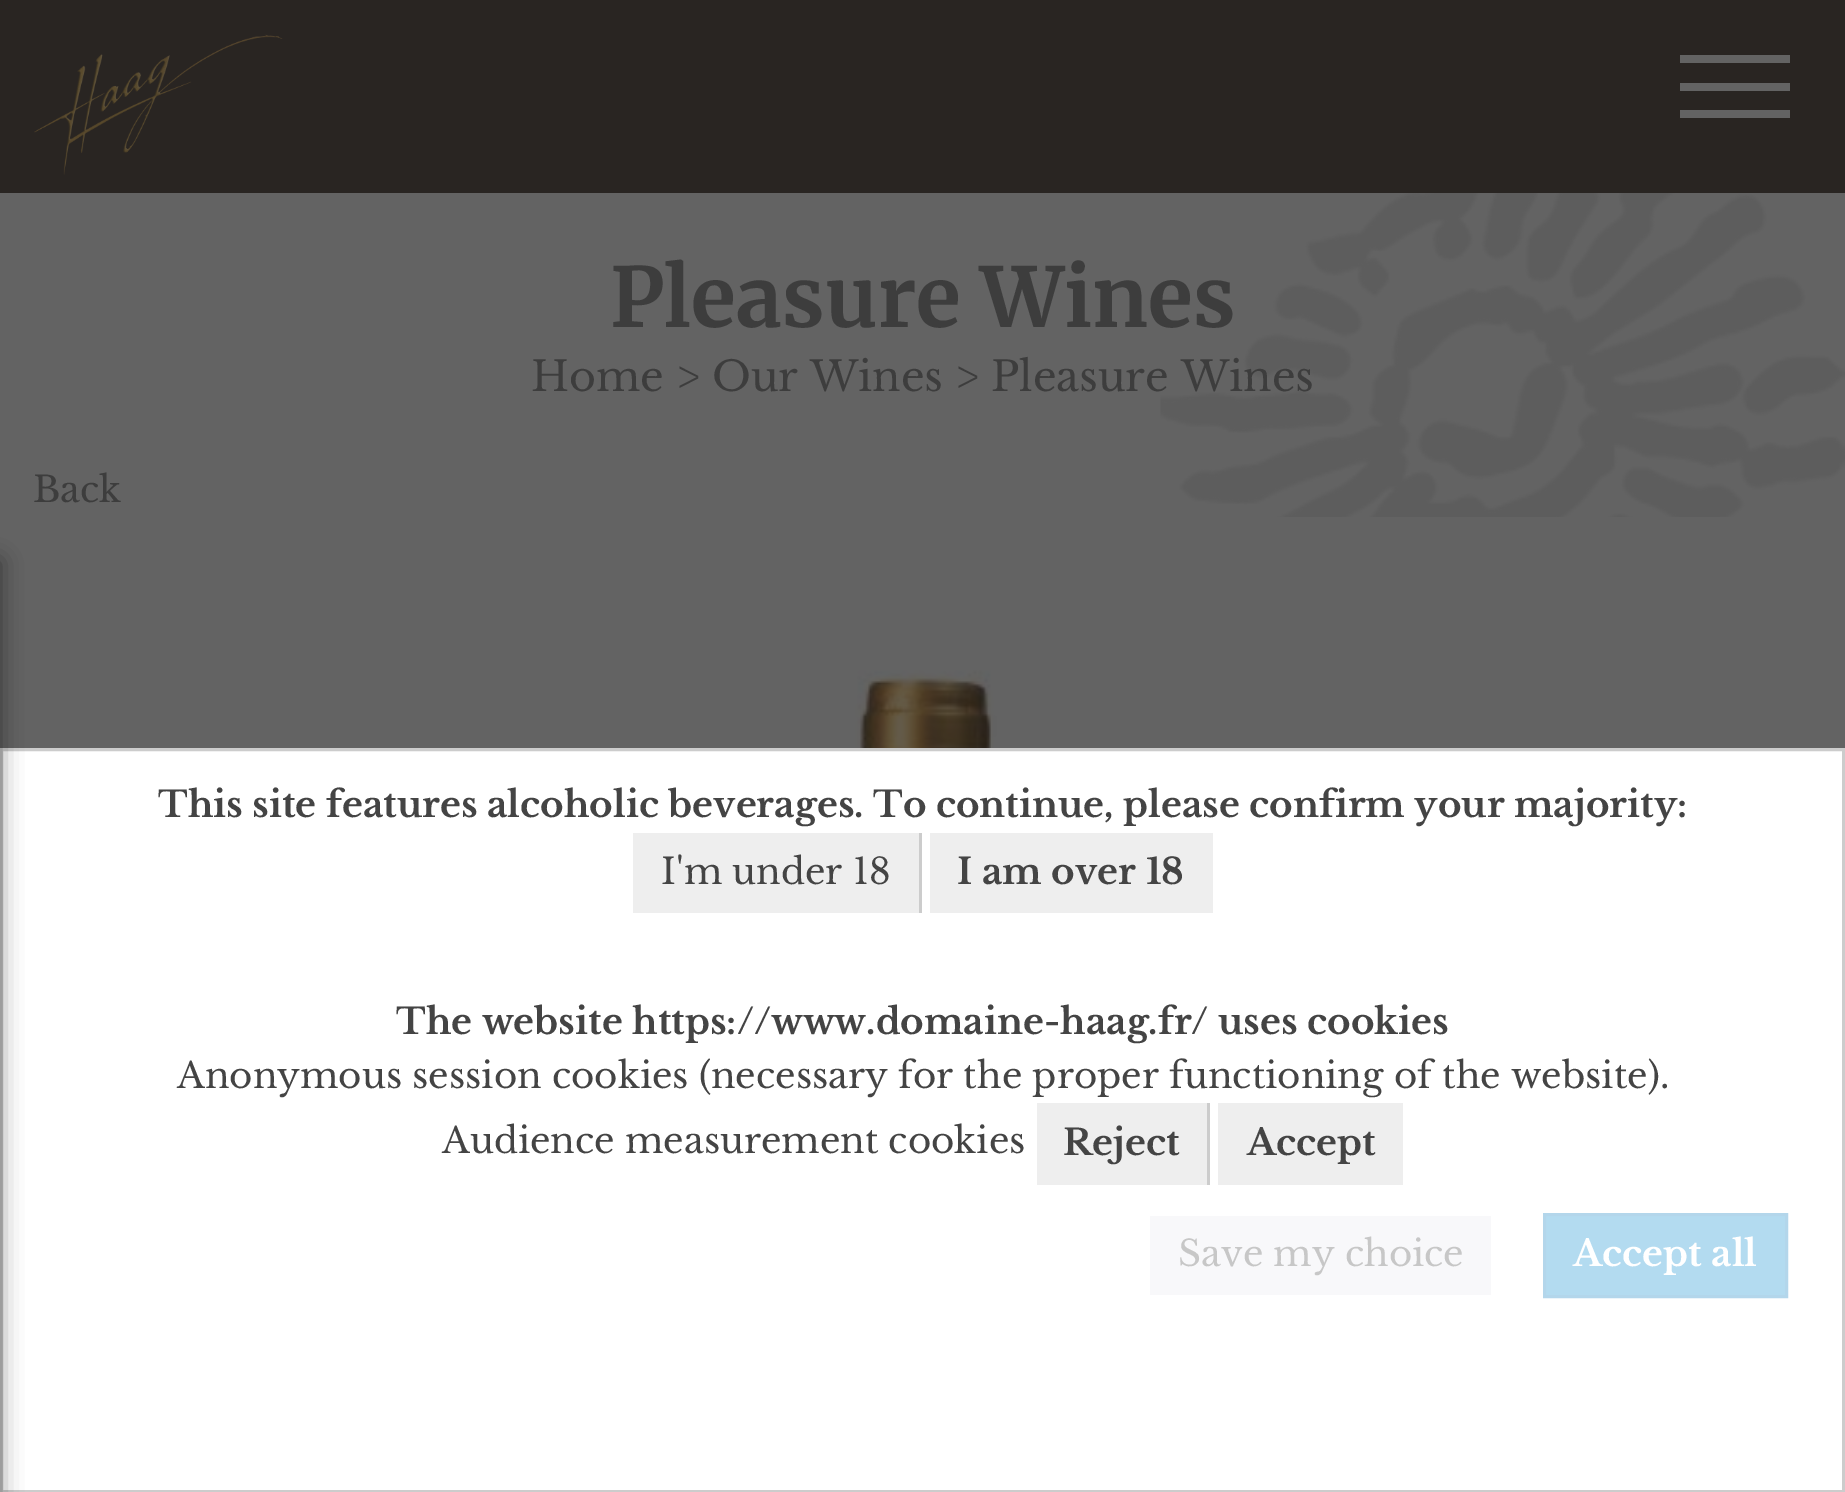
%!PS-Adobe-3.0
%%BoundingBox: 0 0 1845 1492
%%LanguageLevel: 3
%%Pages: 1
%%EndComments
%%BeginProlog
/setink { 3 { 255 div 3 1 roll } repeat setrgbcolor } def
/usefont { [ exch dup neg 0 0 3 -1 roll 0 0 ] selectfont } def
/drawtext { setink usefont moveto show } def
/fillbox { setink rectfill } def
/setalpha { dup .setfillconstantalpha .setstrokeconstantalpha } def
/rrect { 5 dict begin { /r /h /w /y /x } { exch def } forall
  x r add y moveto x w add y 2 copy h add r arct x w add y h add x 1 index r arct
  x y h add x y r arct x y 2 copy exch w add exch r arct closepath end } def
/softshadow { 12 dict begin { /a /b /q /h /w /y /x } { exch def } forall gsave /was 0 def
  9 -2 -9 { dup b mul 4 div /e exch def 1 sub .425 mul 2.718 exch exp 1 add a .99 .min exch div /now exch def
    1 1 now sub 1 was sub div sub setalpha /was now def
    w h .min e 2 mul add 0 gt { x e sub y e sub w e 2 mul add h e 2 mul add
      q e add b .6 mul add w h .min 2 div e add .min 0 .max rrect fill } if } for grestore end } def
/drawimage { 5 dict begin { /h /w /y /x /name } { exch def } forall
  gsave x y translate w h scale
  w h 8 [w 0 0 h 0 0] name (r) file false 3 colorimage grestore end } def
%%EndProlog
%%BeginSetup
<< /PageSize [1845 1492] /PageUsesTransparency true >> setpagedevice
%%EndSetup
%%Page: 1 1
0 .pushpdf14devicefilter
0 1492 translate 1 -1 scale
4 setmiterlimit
0 0 1845 1492 99 99 99 fillbox
0 0 1845 193 41 37 34 fillbox
(assets/img1.rgb) 34 34 249 141 drawimage
1680 55 110 8 99 99 99 fillbox
1680 83 110 8 99 99 99 fillbox
1680 110 110 8 99 99 99 fillbox
(assets/img2.rgb) 1160 193 685 324 drawimage
(Pleasure Wines) 610 327 /Merriweather-Bold 82.5 61 61 61 drawtext
(Home > Our Wines > Pleasure Wines) 531 391 /LibreBaskerville-Regular 41.25 61 61 61 drawtext
(Back) 33 502 /LibreBaskerville-Regular 35.75 61 61 61 drawtext
(assets/img3.rgb) 749 670 350 78 drawimage
255 255 255 setink
1.5 749.5 moveto 1843.5 749.5 lineto 1843.5 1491.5 lineto 1.5 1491.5 lineto closepath gsave fill grestore
204 204 204 setink
3 setlinewidth
stroke
0 0 0 setink
-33 561 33 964 0 11 0.46 softshadow
(This site features alcoholic beverages. To continue, please confirm your majority:) 158 817 /LibreBaskerville-Bold 35.75 68 68 68 drawtext
633 833 286 80 238 238 238 fillbox
919 833 3 80 204 204 204 fillbox
(I'm under 18) 661 884 /LibreBaskerville-Regular 35.75 68 68 68 drawtext
930 833 283 80 238 238 238 fillbox
(I am over 18) 957 884 /LibreBaskerville-Bold 35.75 68 68 68 drawtext
(The website https://www.domaine-haag.fr/ uses cookies) 396 1034 /LibreBaskerville-Bold 35.75 68 68 68 drawtext
(Anonymous session cookies \(necessary for the proper functioning of the website\).) 177 1088 /LibreBaskerville-Regular 35.75 68 68 68 drawtext
(Audience measurement cookies) 442 1153 /LibreBaskerville-Regular 35.75 68 68 68 drawtext
1037 1103 170 82 238 238 238 fillbox
1207 1103 3 82 204 204 204 fillbox
(Reject) 1063 1155 /LibreBaskerville-Bold 35.75 68 68 68 drawtext
1218 1103 185 82 238 238 238 fillbox
(Accept) 1247 1155 /LibreBaskerville-Bold 35.75 68 68 68 drawtext
1150 1216 341 79 248 248 250 fillbox
(Save my choice) 1178 1266 /LibreBaskerville-Regular 35.75 199 199 199 drawtext
179 219 240 setink
1544.5 1214.5 moveto 1786.5 1214.5 lineto 1786.5 1296.5 lineto 1544.5 1296.5 lineto closepath gsave fill grestore
179 214 235 setink
stroke
(Accept all) 1573 1266 /LibreBaskerville-Bold 35.75 255 255 255 drawtext
.poppdf14devicefilter showpage
%%EOF
